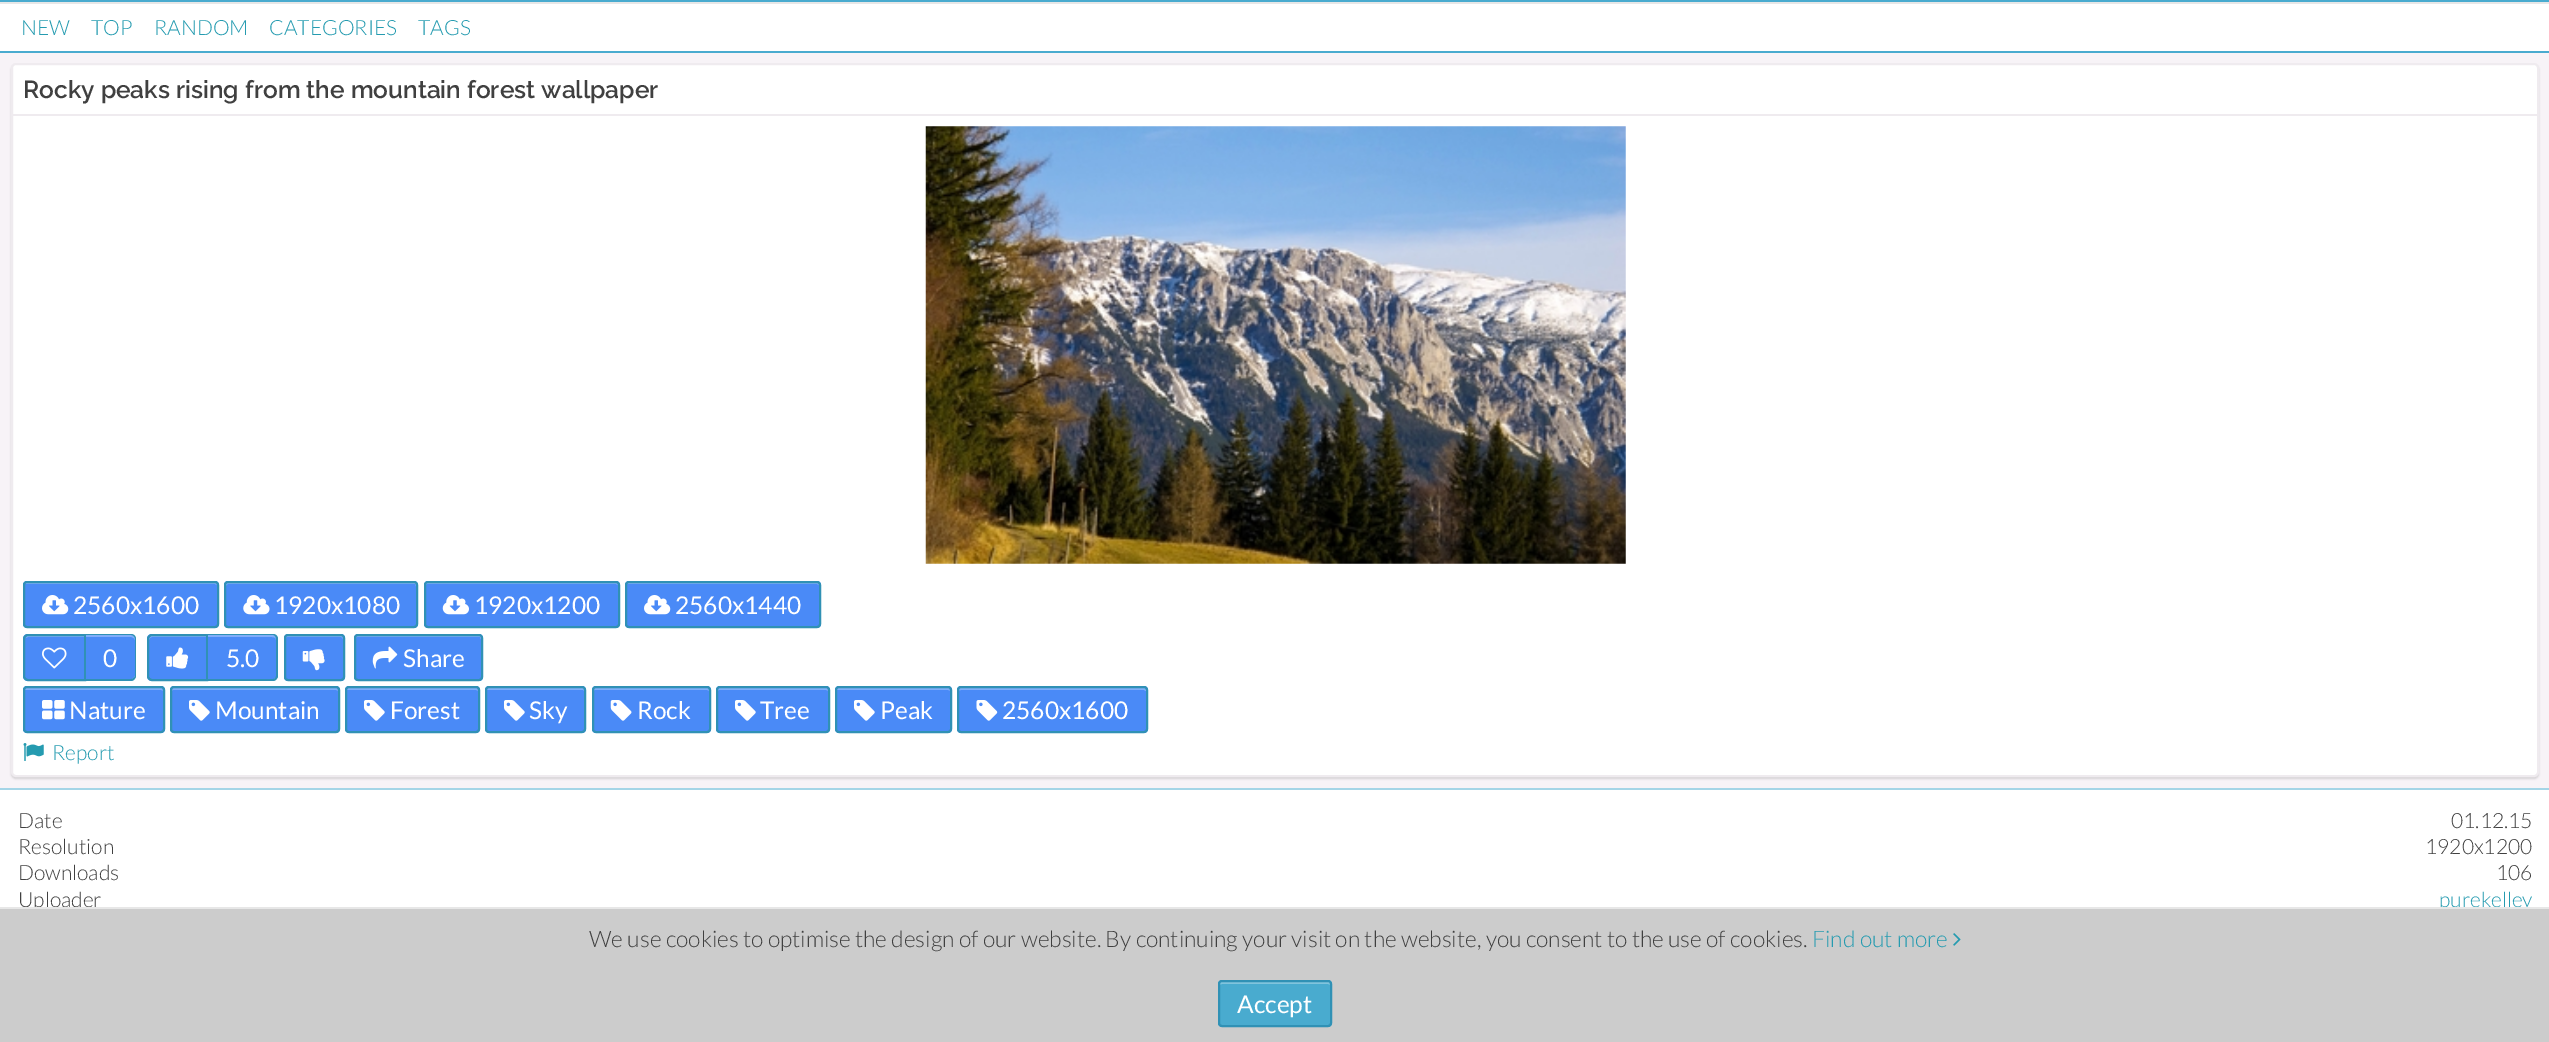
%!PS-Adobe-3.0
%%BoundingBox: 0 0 2549 1042
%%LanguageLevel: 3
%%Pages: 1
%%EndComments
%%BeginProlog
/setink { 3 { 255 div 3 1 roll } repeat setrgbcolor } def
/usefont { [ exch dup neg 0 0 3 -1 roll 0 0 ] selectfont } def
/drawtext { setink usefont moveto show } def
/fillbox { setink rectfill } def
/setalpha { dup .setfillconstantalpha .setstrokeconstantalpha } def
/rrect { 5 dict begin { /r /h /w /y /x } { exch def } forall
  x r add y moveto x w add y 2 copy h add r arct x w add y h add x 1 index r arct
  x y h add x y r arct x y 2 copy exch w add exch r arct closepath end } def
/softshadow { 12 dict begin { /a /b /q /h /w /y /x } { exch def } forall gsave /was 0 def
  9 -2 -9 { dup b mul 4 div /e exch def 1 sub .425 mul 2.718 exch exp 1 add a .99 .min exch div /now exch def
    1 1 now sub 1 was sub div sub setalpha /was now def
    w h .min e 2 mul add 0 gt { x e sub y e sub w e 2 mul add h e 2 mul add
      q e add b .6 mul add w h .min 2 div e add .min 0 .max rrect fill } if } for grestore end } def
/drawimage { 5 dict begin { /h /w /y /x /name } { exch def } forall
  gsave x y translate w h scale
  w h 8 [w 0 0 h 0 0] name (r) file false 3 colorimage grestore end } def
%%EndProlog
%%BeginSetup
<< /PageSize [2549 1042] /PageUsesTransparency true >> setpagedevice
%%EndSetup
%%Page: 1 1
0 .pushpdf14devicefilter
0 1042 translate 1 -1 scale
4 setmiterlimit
0 0 2549 1042 247 243 247 fillbox
0 0 2549 2 73 171 207 fillbox
0 2 2549 2 231 231 231 fillbox
0 4 2549 47 255 255 255 fillbox
0 51 2549 2 73 171 207 fillbox
(NEW) 21 35 /Lato-Light 21 37 155 176 drawtext
(TOP) 91 35 /Lato-Light 21 37 155 176 drawtext
(RANDOM) 154 35 /Lato-Light 21 37 155 176 drawtext
(CATEGORIES) 269 35 /Lato-Light 21 37 155 176 drawtext
(TAGS) 418 35 /Lato-Light 21 37 155 176 drawtext
0 0 0 setink
11 65 2528 714 5 1 0.14 softshadow
255 255 255 setink
12 64 2526 712 4 rrect gsave fill grestore
239 235 239 setink
2 setlinewidth
stroke
12 114 2526 2 239 235 239 fillbox
(Rocky peaks rising from the mountain forest wallpaper) 23 98 /Raleway-Thin 24.5 64 64 64 drawtext
(assets/img1.rgb) 925 126 701 438 drawimage
74 138 247 setink
23 581 196 47 4 rrect fill
128 173 249 setink
26 584 moveto 215 584 lineto 217 585 lineto 217 586 lineto 217 585 lineto 217 584 216 583 215 583 curveto 27 583 lineto 26 583 25 584 25 584 curveto closepath fill
48 145 181 setink
24 582 194 45 3 rrect stroke
(assets/img2.rgb) 42 595 27 20 drawimage
(2560x1600) 73 614 /Lato-Regular 24.5 255 255 255 drawtext
74 138 247 setink
224 581 194 47 4 rrect fill
128 173 249 setink
228 584 moveto 415 584 lineto 417 584 416 597 416 599 curveto 416 627 lineto 417 626 417 626 417 625 curveto 417 585 lineto 417 584 416 583 415 583 curveto 228 583 lineto 227 583 226 584 226 585 curveto 226 586 lineto 226 585 227 584 228 584 curveto closepath fill
48 145 181 setink
225 582 192 45 3 rrect stroke
(assets/img3.rgb) 243 595 27 20 drawimage
(1920x1080) 274 614 /Lato-Regular 24.5 255 255 255 drawtext
74 138 247 setink
424 581 196 47 4 rrect fill
128 173 249 setink
427 584 moveto 616 584 lineto 618 585 lineto 618 586 lineto 618 585 lineto 618 584 617 583 616 583 curveto 427 583 lineto 426 583 425 584 425 585 curveto 425 586 lineto 425 585 426 584 427 584 curveto closepath fill
48 145 181 setink
425 582 194 45 3 rrect stroke
(assets/img4.rgb) 442 595 27 20 drawimage
(1920x1200) 474 614 /Lato-Regular 24.5 255 255 255 drawtext
74 138 247 setink
625 581 196 47 4 rrect fill
128 173 249 setink
628 584 moveto 817 584 lineto 819 585 lineto 819 586 lineto 819 585 lineto 819 584 818 583 817 583 curveto 629 583 lineto 628 583 627 584 627 584 curveto closepath fill
48 145 181 setink
626 582 194 45 3 rrect stroke
(assets/img2.rgb) 644 595 27 20 drawimage
(2560x1440) 675 614 /Lato-Regular 24.5 255 255 255 drawtext
74 138 247 setink
28 634 moveto 86 634 lineto 86 681 lineto 28 681 lineto 25 681 23 679 23 676 curveto 23 639 lineto 23 636 25 634 28 634 curveto closepath fill
128 173 249 setink
28 637 moveto 84 637 lineto 84 635 lineto 29 635 lineto 27 635 25 636 25 638 curveto closepath fill
48 145 181 setink
28 635 moveto 85 635 lineto 85 680 lineto 28 680 lineto 26 680 24 678 24 676 curveto 24 639 lineto 24 637 26 635 28 635 curveto closepath stroke
(assets/img5.rgb) 42 647 25 22 drawimage
74 138 247 setink
86 635 moveto 131 635 lineto 133 635 135 637 135 639 curveto 135 675 lineto 135 677 133 679 131 679 curveto 86 679 lineto closepath fill
0.3 setalpha
255 255 255 setink
86 637 moveto 131 637 lineto 133 637 135 639 135 640 curveto 135 639 lineto 135 637 133 635 131 635 curveto 86 635 lineto closepath fill
1 setalpha
48 145 181 setink
86 634 moveto 131 634 lineto 134 634 136 636 136 639 curveto 136 676 lineto 136 678 134 681 131 681 curveto 86 681 lineto closepath 86 635 moveto 131 635 lineto 133 635 135 637 135 639 curveto 135 676 lineto 135 677 133 679 131 679 curveto 86 679 lineto closepath eofill
(0) 103 667 /Lato-Regular 24.5 255 255 255 drawtext
74 138 247 setink
152 634 moveto 208 634 lineto 208 681 lineto 152 681 lineto 149 681 147 679 147 676 curveto 147 639 lineto 147 636 149 634 152 634 curveto closepath fill
128 173 249 setink
152 637 moveto 206 637 lineto 206 679 lineto 207 679 lineto 207 635 lineto 153 635 lineto 151 635 149 637 149 639 curveto 149 640 lineto 149 639 150 637 152 637 curveto closepath fill
48 145 181 setink
152 635 moveto 207 635 lineto 207 680 lineto 152 680 lineto 150 680 148 678 148 676 curveto 148 639 lineto 148 637 150 635 152 635 curveto closepath stroke
(assets/img6.rgb) 166 647 23 22 drawimage
74 138 247 setink
208 635 moveto 273 635 lineto 275 635 277 637 277 639 curveto 277 675 lineto 277 677 275 679 273 679 curveto 208 679 lineto closepath fill
0.3 setalpha
255 255 255 setink
208 637 moveto 262 637 lineto 279 637 276 635 276 652 curveto 276 678 lineto 277 677 277 676 277 675 curveto 277 639 lineto 277 637 275 635 273 635 curveto 208 635 lineto closepath fill
1 setalpha
48 145 181 setink
208 634 moveto 273 634 lineto 276 634 278 636 278 639 curveto 278 676 lineto 278 678 276 681 273 681 curveto 208 681 lineto closepath 208 635 moveto 273 635 lineto 275 635 276 637 276 639 curveto 276 676 lineto 276 677 275 679 273 679 curveto 208 679 lineto closepath eofill
(5.0) 226 667 /Lato-Regular 24.5 255 255 255 drawtext
74 138 247 setink
284 634 61 47 4 rrect fill
0.3 setalpha
255 255 255 setink
287 637 moveto 341 637 lineto 342 637 343 638 343 639 curveto 343 632 339 635 332 635 curveto 296 635 lineto 289 635 285 632 285 639 curveto 285 638 286 637 287 637 curveto closepath fill
1 setalpha
48 145 181 setink
285 635 59 45 3 rrect stroke
(assets/img7.rgb) 302 649 23 22 drawimage
74 138 247 setink
354 634 129 47 4 rrect fill
128 173 249 setink
357 637 moveto 480 637 lineto 481 639 lineto 481 637 lineto 481 636 480 635 479 635 curveto 357 635 lineto 356 635 355 636 355 637 curveto 355 639 lineto 355 638 356 637 357 637 curveto closepath fill
48 145 181 setink
355 635 127 45 3 rrect stroke
(assets/img8.rgb) 372 646 26 23 drawimage
(Share) 403 667 /Lato-Regular 24.5 255 255 255 drawtext
74 138 247 setink
23 686 142 47 4 rrect fill
128 173 249 setink
26 690 moveto 161 690 lineto 162 690 163 690 163 691 curveto 163 690 163 688 161 688 curveto 27 688 lineto 26 688 25 689 25 690 curveto closepath fill
48 145 181 setink
24 687 140 45 3 rrect stroke
(assets/img9.rgb) 42 700 23 20 drawimage
(Nature) 69 719 /Lato-Regular 24.5 255 255 255 drawtext
74 138 247 setink
170 686 170 47 4 rrect fill
128 173 249 setink
173 690 moveto 336 690 lineto 337 690 338 690 338 691 curveto 338 690 338 688 336 688 curveto 174 688 lineto 172 688 172 690 172 691 curveto 172 690 172 690 173 690 curveto closepath fill
48 145 181 setink
171 687 168 45 3 rrect stroke
(assets/img10.rgb) 189 700 21 21 drawimage
(Mountain) 215 719 /Lato-Regular 24.5 255 255 255 drawtext
74 138 247 setink
345 686 135 47 4 rrect fill
128 173 249 setink
348 690 moveto 476 690 lineto 477 690 478 690 478 691 curveto 478 690 lineto 478 689 477 688 476 688 curveto 349 688 lineto 348 688 347 689 347 690 curveto closepath fill
48 145 181 setink
346 687 133 45 3 rrect stroke
(assets/img10.rgb) 364 700 21 21 drawimage
(Forest) 390 719 /Lato-Regular 24.5 255 255 255 drawtext
74 138 247 setink
485 686 101 47 4 rrect fill
128 173 249 setink
488 690 moveto 583 690 lineto 584 690 584 690 584 691 curveto 584 732 lineto 585 731 585 731 585 730 curveto 585 690 lineto 585 689 584 688 583 688 curveto 489 688 lineto 488 688 487 689 487 690 curveto closepath fill
48 145 181 setink
486 687 99 45 3 rrect stroke
(assets/img10.rgb) 504 700 21 21 drawimage
(Sky) 529 719 /Lato-Regular 24.5 255 255 255 drawtext
74 138 247 setink
592 686 119 47 4 rrect fill
128 173 249 setink
595 690 moveto 707 690 lineto 708 690 709 690 709 691 curveto 709 690 709 688 707 688 curveto 595 688 lineto 593 688 593 690 593 691 curveto 593 690 594 690 595 690 curveto closepath fill
48 145 181 setink
593 687 117 45 3 rrect stroke
(assets/img11.rgb) 610 700 22 21 drawimage
(Rock) 637 719 /Lato-Regular 24.5 255 255 255 drawtext
74 138 247 setink
716 686 114 47 4 rrect fill
128 173 249 setink
719 690 moveto 826 690 lineto 827 690 828 690 828 691 curveto 828 690 828 688 826 688 curveto 720 688 lineto 718 688 718 690 718 691 curveto 718 690 718 690 719 690 curveto closepath fill
48 145 181 setink
717 687 112 45 3 rrect stroke
(assets/img10.rgb) 735 700 21 21 drawimage
(Tree) 760 719 /Lato-Regular 24.5 255 255 255 drawtext
74 138 247 setink
835 686 117 47 4 rrect fill
128 173 249 setink
838 690 moveto 948 690 lineto 949 690 950 690 950 691 curveto 950 690 lineto 950 689 949 688 948 688 curveto 839 688 lineto 838 688 837 689 837 690 curveto closepath fill
48 145 181 setink
836 687 115 45 3 rrect stroke
(assets/img10.rgb) 854 700 21 21 drawimage
(Peak) 880 719 /Lato-Regular 24.5 255 255 255 drawtext
74 138 247 setink
957 686 191 47 4 rrect fill
128 173 249 setink
961 690 moveto 1144 690 lineto 1146 691 lineto 1146 690 lineto 1146 689 1145 688 1144 688 curveto 961 688 lineto 960 688 959 689 959 690 curveto 959 691 lineto 959 690 960 690 961 690 curveto closepath fill
48 145 181 setink
958 687 189 45 3 rrect stroke
(assets/img12.rgb) 976 700 22 21 drawimage
(2560x1600) 1002 719 /Lato-Regular 24.5 255 255 255 drawtext
(assets/img13.rgb) 23 743 21 18 drawimage
(Report) 52 760 /Lato-Light 21 37 155 176 drawtext
0 790 2549 117 255 255 255 fillbox
0 788 2549 2 164 213 231 fillbox
(Date) 18 828 /Lato-Light 21 64 64 64 drawtext
(01.12.15) 2451 828 /Lato-Light 21 64 64 64 drawtext
(Resolution) 18 854 /Lato-Light 21 64 64 64 drawtext
(1920x1200) 2425 854 /Lato-Light 21 64 64 64 drawtext
(Downloads) 18 880 /Lato-Light 21 64 64 64 drawtext
(106) 2496 880 /Lato-Light 21 64 64 64 drawtext
(Uploader) 18 907 /Lato-Light 21 64 64 64 drawtext
(purekelley) 2439 907 /Lato-Light 21 37 155 176 drawtext
0 909 2549 133 204 204 204 fillbox
0 907 2549 2 231 231 231 fillbox
(We use cookies to optimise the design of our website. By continuing your visit on the website, you consent to the use of cookies.) 589 947 /Lato-Light 22.75 64 64 64 drawtext
(Find out more) 1812 947 /Lato-Light 22.75 37 155 176 drawtext
(assets/img14.rgb) 1953 933 8 13 drawimage
73 171 207 setink
1218 980 114 47 4 rrect fill
128 196 221 setink
1222 984 moveto 1328 984 lineto 1329 984 1330 984 1330 985 curveto 1330 984 1330 982 1328 982 curveto 1222 982 lineto 1220 982 1220 984 1220 985 curveto 1220 984 1221 984 1222 984 curveto closepath fill
48 145 181 setink
1219 981 112 45 3 rrect stroke
(Accept) 1237 1013 /Lato-Regular 24.5 255 255 255 drawtext
.poppdf14devicefilter showpage
%%EOF
